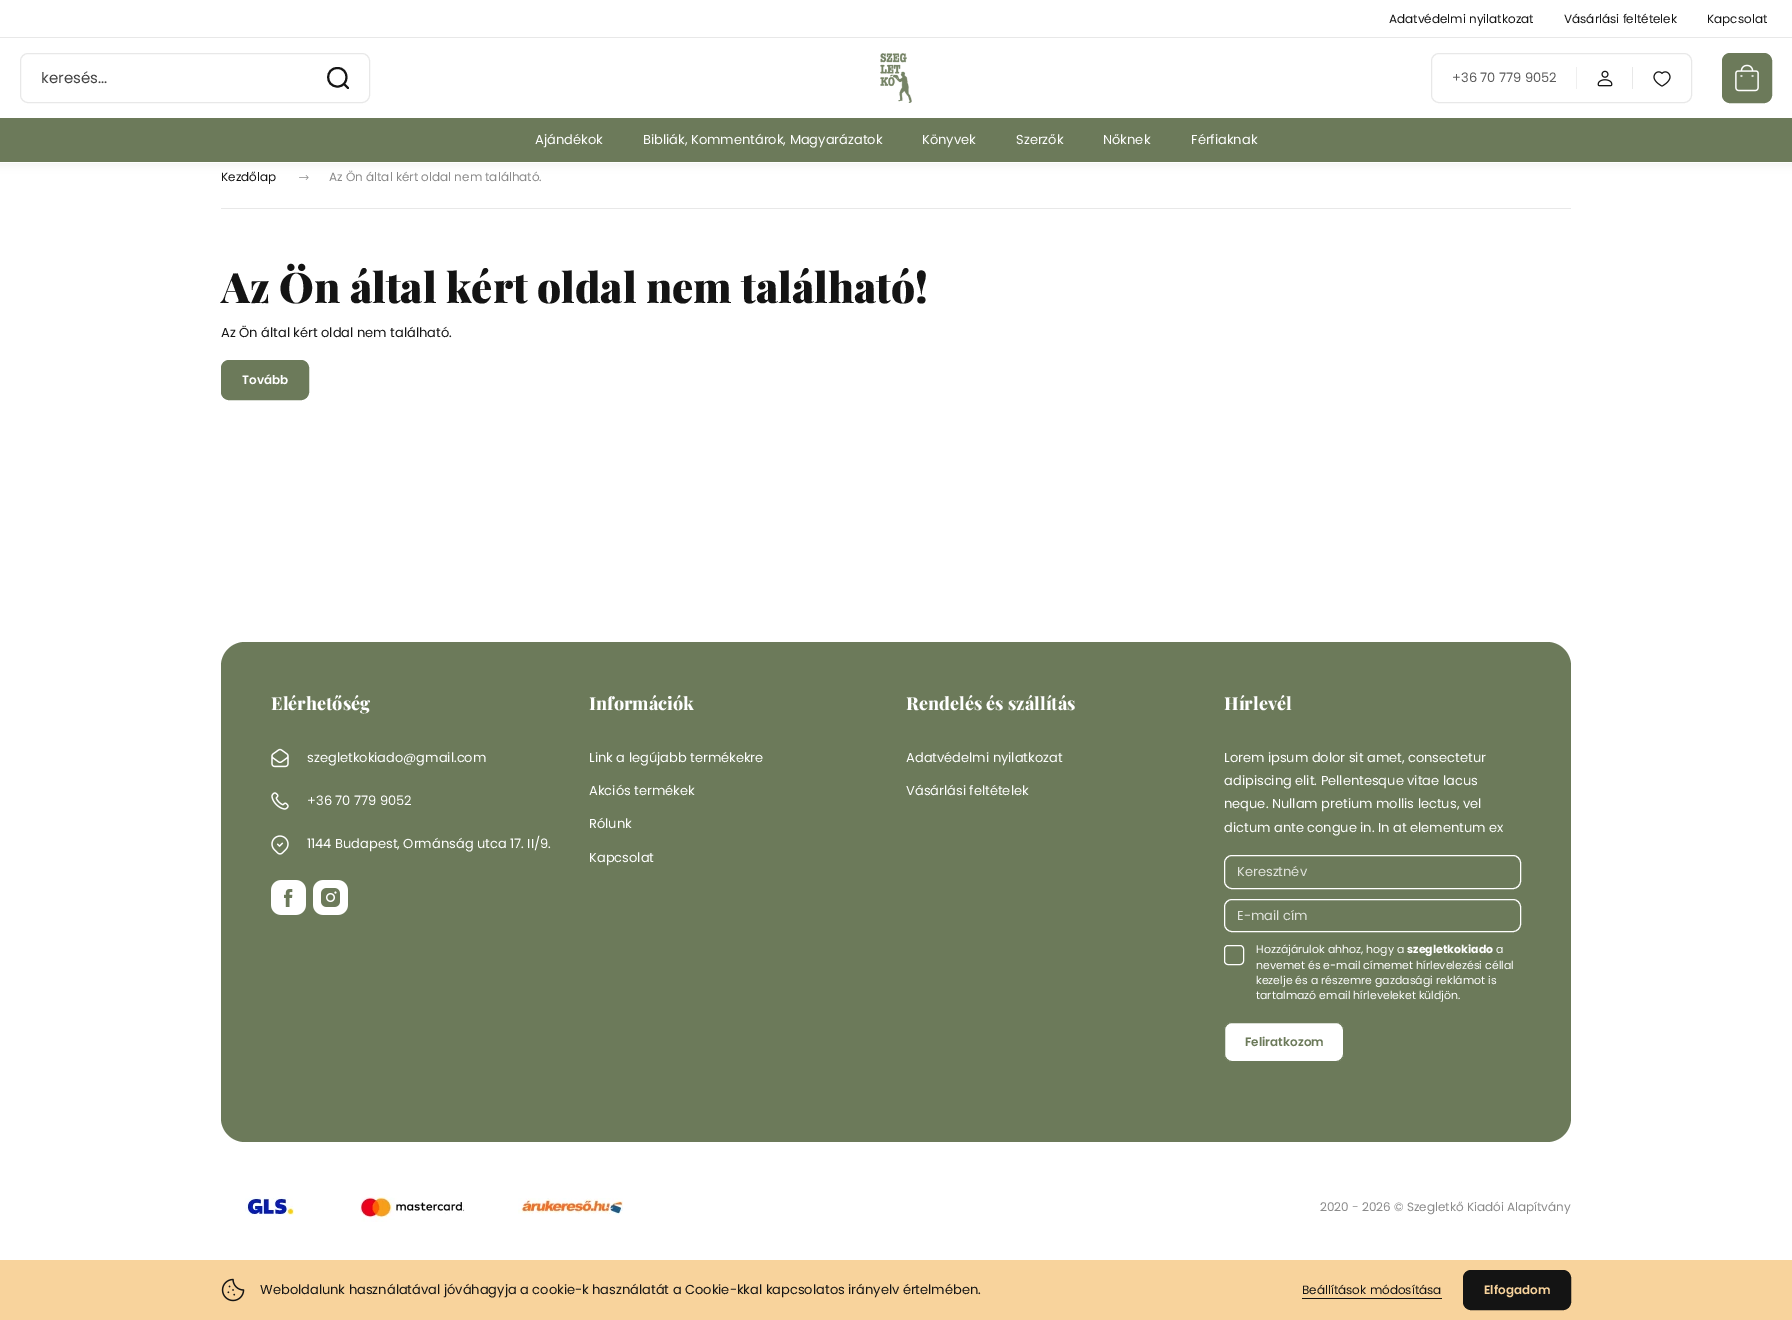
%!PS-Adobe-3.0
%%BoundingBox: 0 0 1792 1320
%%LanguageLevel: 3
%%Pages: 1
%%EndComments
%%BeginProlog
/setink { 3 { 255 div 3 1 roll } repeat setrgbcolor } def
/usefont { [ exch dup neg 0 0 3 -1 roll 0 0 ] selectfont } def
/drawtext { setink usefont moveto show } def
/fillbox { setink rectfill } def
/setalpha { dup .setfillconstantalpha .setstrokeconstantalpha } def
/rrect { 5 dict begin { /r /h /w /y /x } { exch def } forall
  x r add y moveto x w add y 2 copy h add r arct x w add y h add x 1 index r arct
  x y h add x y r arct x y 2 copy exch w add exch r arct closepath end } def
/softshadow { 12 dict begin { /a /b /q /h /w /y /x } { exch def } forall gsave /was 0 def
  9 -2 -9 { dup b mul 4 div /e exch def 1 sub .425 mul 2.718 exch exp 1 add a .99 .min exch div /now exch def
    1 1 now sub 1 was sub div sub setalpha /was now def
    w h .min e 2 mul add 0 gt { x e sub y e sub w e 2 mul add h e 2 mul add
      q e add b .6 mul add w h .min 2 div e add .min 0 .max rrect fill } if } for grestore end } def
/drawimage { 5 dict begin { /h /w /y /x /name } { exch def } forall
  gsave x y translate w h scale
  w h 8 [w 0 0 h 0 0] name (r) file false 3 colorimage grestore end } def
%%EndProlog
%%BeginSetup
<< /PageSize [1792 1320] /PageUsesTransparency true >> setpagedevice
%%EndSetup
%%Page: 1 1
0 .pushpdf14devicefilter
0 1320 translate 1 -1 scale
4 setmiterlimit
0 0 1792 1320 255 255 255 fillbox
(assets/img5.rgb) 299 175 10 5 drawimage
0 0 0 setink
-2 -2 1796 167 0 5 0.05 softshadow
0 0 1792 163 255 255 255 fillbox
0 37 1792 1 232 232 232 fillbox
(Adatvédelmi nyilatkozat) 1389 23 /Poppins-Regular 12 20 20 20 drawtext
(Vásárlási feltételek) 1564 23 /Poppins-Regular 12 20 20 20 drawtext
(Kapcsolat) 1707 23 /Poppins-Regular 12 20 20 20 drawtext
232 232 232 setink
20.5 53.5 349 49 7.5 rrect stroke
(keresés...) 41 83 /Poppins-Regular 15 67 67 67 drawtext
20 20 20 setink
2 setlinewidth
1 setlinecap
1 setlinejoin
348 88 moveto 344 84 lineto 337.5 86.5 moveto 325 86.5 325 68 337.5 68 curveto 349.5 68 349.5 86.5 337.5 86.5 curveto closepath stroke
(assets/img1.rgb) 880 53 32 50 drawimage
232 232 232 setink
1 setlinewidth
0 setlinecap
0 setlinejoin
1431.5 53.5 260 49 7.5 rrect stroke
(+36 70 779 9052) 1452 82 /Poppins-Regular 13 91 91 91 drawtext
1576 67 1 22 239 239 239 fillbox
(assets/img2.rgb) 1597 70 16 17 drawimage
1632 67 1 22 232 232 232 fillbox
(assets/img3.rgb) 1653 71 18 16 drawimage
108 122 90 setink
1722.5 53.5 49 49 7.5 rrect gsave fill grestore
stroke
(assets/img4.rgb) 1735 64 24 28 drawimage
0 118 1792 44 108 122 90 fillbox
(Ajándékok) 535 144 /Poppins-Regular 13 255 255 255 drawtext
(Bibliák, Kommentárok, Magyarázatok) 643 144 /Poppins-Regular 13 255 255 255 drawtext
(Könyvek) 922 144 /Poppins-Regular 13 255 255 255 drawtext
(Szerzők) 1016 144 /Poppins-Regular 13 255 255 255 drawtext
(Nőknek) 1103 144 /Poppins-Regular 13 255 255 255 drawtext
(Férfiaknak) 1191 144 /Poppins-Regular 13 255 255 255 drawtext
221 208 1350 1 232 232 232 fillbox
(Kezdőlap) 221 181 /Poppins-Regular 12 20 20 20 drawtext
(Az Ön által kért oldal nem található.) 329 181 /Poppins-Regular 12 138 138 138 drawtext
(Az Ön által kért oldal nem található!) 221 303 /PlayfairDisplay-Black 42 20 20 20 drawtext
(Az Ön által kért oldal nem található.) 221 337 /Poppins-Regular 13 20 20 20 drawtext
108 122 90 setink
221.5 360.5 87 39 7.5 rrect gsave fill grestore
stroke
(Tovább) 242 384 /Poppins-SemiBold 12 255 255 255 drawtext
108 122 90 setink
221 642 1350 500 24 rrect fill
(Elérhetőség) 271 710 /PlayfairDisplay-ExtraBold 18 255 255 255 drawtext
(assets/img6.rgb) 271 748 18 20 drawimage
(szegletkokiado@gmail.com) 307 762 /Poppins-Regular 13 255 255 255 drawtext
(assets/img7.rgb) 271 792 18 18 drawimage
(+36 70 779 9052) 307 805 /Poppins-Regular 13 255 255 255 drawtext
(assets/img8.rgb) 271 835 18 20 drawimage
(1144 Budapest, Ormánság utca 17. II/9.) 307 848 /Poppins-Regular 13 255 255 255 drawtext
(assets/img9.rgb) 271 880 35 35 drawimage
(assets/img10.rgb) 313 880 35 35 drawimage
(Információk) 589 710 /PlayfairDisplay-ExtraBold 18 255 255 255 drawtext
(Link a legújabb termékekre) 589 762 /Poppins-Regular 13 255 255 255 drawtext
(Akciós termékek) 589 795 /Poppins-Regular 13 255 255 255 drawtext
(Rólunk) 589 828 /Poppins-Regular 13 255 255 255 drawtext
(Kapcsolat) 589 862 /Poppins-Regular 13 255 255 255 drawtext
(Rendelés és szállítás) 906 710 /PlayfairDisplay-ExtraBold 18 255 255 255 drawtext
(Adatvédelmi nyilatkozat) 906 762 /Poppins-Regular 13 255 255 255 drawtext
(Vásárlási feltételek) 906 795 /Poppins-Regular 13 255 255 255 drawtext
(Hírlevél) 1224 710 /PlayfairDisplay-ExtraBold 18 255 255 255 drawtext
(Lorem ipsum dolor sit amet, consectetur) 1224 762 /Poppins-Regular 13 255 255 255 drawtext
(adipiscing elit. Pellentesque vitae lacus) 1224 785 /Poppins-Regular 13 255 255 255 drawtext
(neque. Nullam pretium mollis lectus, vel) 1224 808 /Poppins-Regular 13 255 255 255 drawtext
(dictum ante congue in. In at elementum ex) 1224 832 /Poppins-Regular 13 255 255 255 drawtext
1224.5 855.5 296 33 7.5 rrect stroke
(Keresztnév) 1237 876 /Poppins-Regular 13 226 228 222 drawtext
255 255 255 setink
1224.5 899.5 296 32 7.5 rrect stroke
(E-mail cím) 1237 920 /Poppins-Regular 13 226 228 222 drawtext
255 255 255 setink
1224.5 945.5 19 19 3.5 rrect stroke
(Hozzájárulok ahhoz, hogy a) 1256 953 /Poppins-Regular 11 255 255 255 drawtext
(szegletkokiado) 1407 953 /Poppins-Bold 11 255 255 255 drawtext
(a) 1496 953 /Poppins-Regular 11 255 255 255 drawtext
(nevemet és e-mail címemet hírlevelezési céllal) 1256 969 /Poppins-Regular 11 255 255 255 drawtext
(kezelje és a részemre gazdasági reklámot is) 1256 984 /Poppins-Regular 11 255 255 255 drawtext
(tartalmazó email hírleveleket küldjön.) 1256 999 /Poppins-Regular 11 255 255 255 drawtext
1224.5 1022.5 119 39 7.5 rrect gsave fill grestore
108 122 90 setink
stroke
(Feliratkozom) 1245 1046 /Poppins-SemiBold 12 108 122 90 drawtext
(assets/img11.rgb) 245 1197 49 18 drawimage
(assets/img12.rgb) 360 1197 105 25 drawimage
(assets/img13.rgb) 518 1198 105 17 drawimage
(2020 - 2026 © Szegletkő Kiadói Alapítvány) 1320 1211 /Poppins-Regular 12 138 138 138 drawtext
0 1260 1792 60 248 211 156 fillbox
(assets/img14.rgb) 221 1278 24 24 drawimage
(Weboldalunk használatával jóváhagyja a cookie-k használatát a Cookie-kkal kapcsolatos irányelv értelmében.) 260 1294 /Poppins-Regular 13 20 20 20 drawtext
(Beállítások módosítása) 1302 1294 /Poppins-Regular 12 20 20 20 drawtext
1302 1298 140 1 20 20 20 fillbox
1463.5 1270.5 107 39 7.5 rrect gsave fill grestore
stroke
(Elfogadom) 1484 1294 /Poppins-SemiBold 12 248 211 156 drawtext
.poppdf14devicefilter showpage
%%EOF
